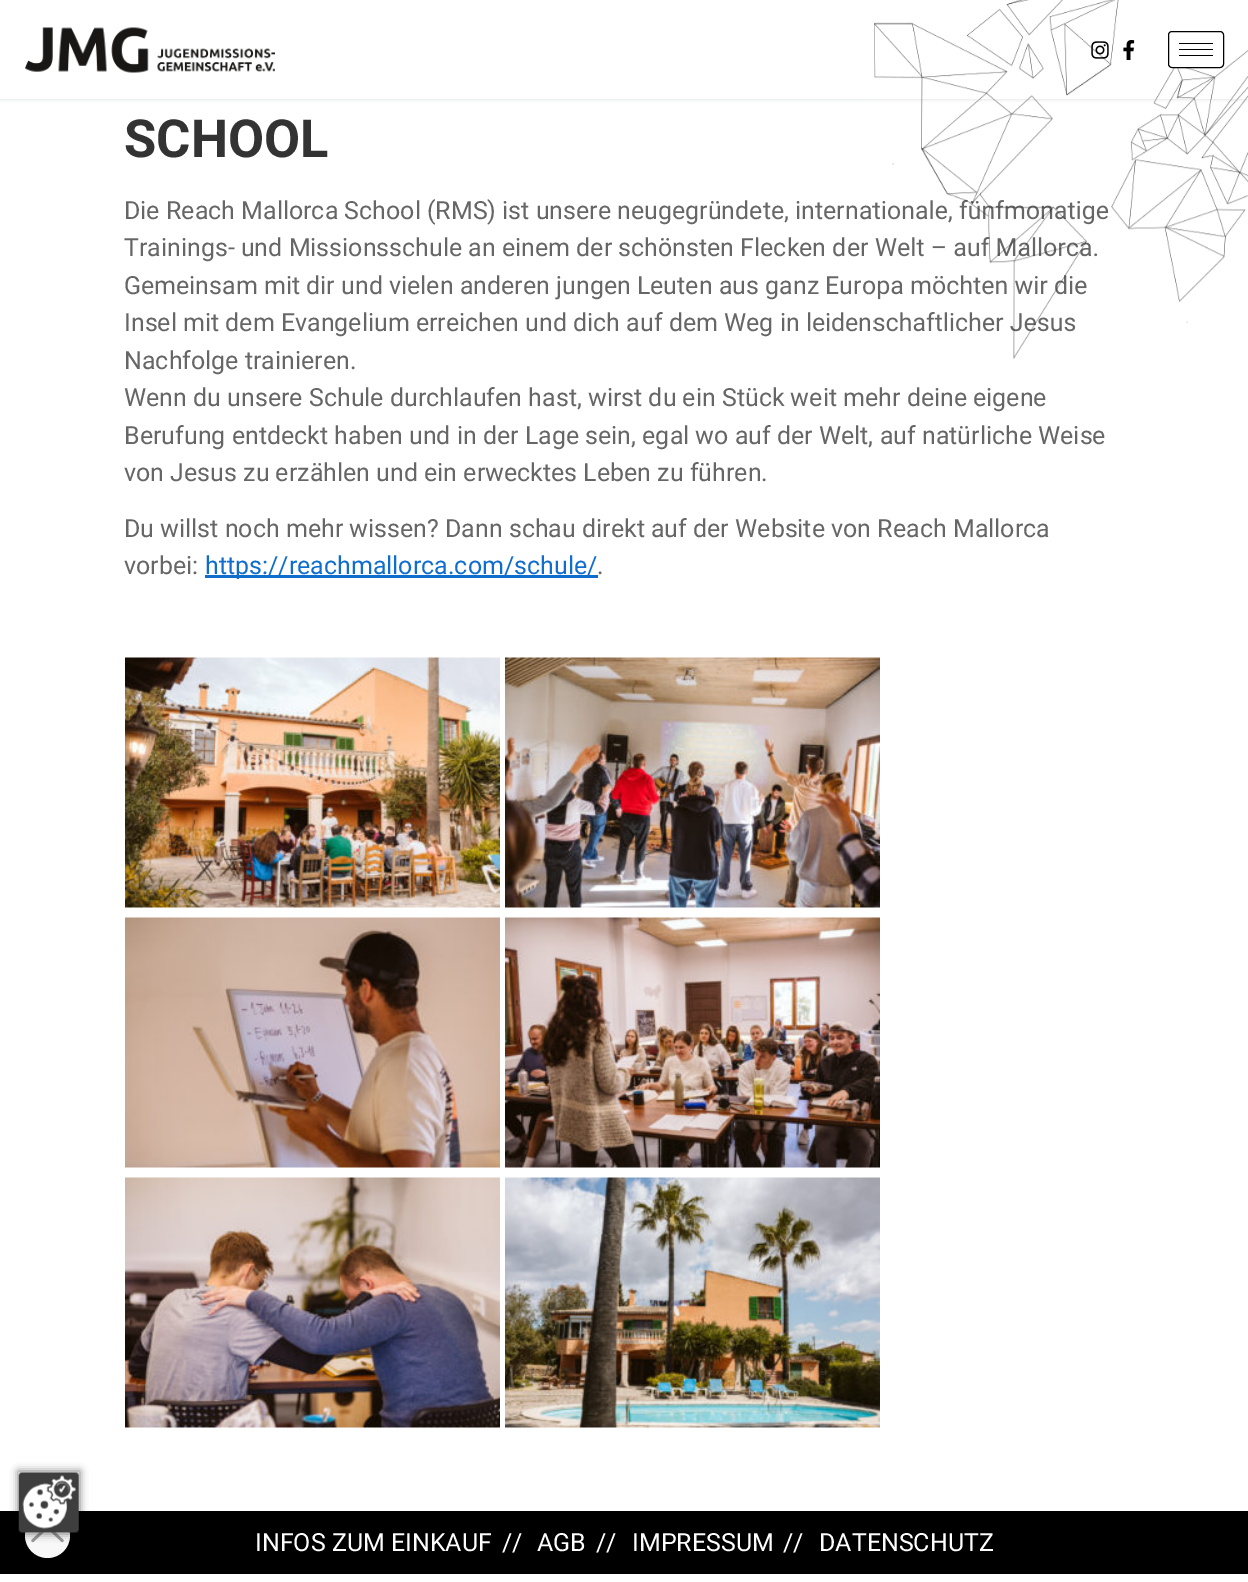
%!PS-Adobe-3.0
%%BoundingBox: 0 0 1248 1582
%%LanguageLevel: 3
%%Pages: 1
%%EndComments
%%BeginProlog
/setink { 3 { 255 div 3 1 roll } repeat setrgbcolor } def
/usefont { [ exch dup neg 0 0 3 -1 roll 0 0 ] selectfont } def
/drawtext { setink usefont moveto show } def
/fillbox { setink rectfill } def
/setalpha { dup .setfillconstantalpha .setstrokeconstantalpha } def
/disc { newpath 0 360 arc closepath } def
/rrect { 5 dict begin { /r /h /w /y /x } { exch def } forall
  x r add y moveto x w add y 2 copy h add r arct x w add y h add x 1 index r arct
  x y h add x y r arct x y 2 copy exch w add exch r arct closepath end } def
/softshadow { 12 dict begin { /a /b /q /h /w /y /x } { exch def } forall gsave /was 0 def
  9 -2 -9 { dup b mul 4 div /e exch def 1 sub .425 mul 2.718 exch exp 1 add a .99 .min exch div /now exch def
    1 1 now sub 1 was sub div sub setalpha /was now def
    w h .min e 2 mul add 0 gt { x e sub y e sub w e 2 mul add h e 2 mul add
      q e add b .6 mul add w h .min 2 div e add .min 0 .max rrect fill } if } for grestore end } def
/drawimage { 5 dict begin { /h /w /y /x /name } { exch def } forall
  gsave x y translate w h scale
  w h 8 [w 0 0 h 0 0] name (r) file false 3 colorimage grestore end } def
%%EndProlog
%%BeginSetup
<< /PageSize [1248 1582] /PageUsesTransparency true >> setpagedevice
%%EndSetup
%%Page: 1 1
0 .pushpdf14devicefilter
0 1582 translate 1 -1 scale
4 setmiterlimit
0 0 1248 1582 255 255 255 fillbox
53 64 78 setink
0 0 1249 99 0 2 0.2 softshadow
0 0 1248 99 255 255 255 fillbox
(Die Reach Mallorca School \(RMS\) ist unsere neugegründete, internationale, fünfmonatige) 124 219 /Roboto-Regular 25 102 102 102 drawtext
(Trainings- und Missionsschule an einem der schönsten Flecken der Welt – auf Mallorca.) 124 256 /Roboto-Regular 25 102 102 102 drawtext
(Gemeinsam mit dir und vielen anderen jungen Leuten aus ganz Europa möchten wir die) 124 294 /Roboto-Regular 25 102 102 102 drawtext
(Insel mit dem Evangelium erreichen und dich auf dem Weg in leidenschaftlicher Jesus) 124 331 /Roboto-Regular 25 102 102 102 drawtext
(assets/img1.rgb) 874 0 374 359 drawimage
(assets/img2.rgb) 25 27 250 46 drawimage
(assets/img3.rgb) 1091 41 18 18 drawimage
(assets/img4.rgb) 1123 40 12 20 drawimage
255 255 255 setink
1168.5 31.5 55 36 3.5 rrect gsave fill grestore
0 0 0 setink
stroke
1179 43 34 1 0 0 0 fillbox
1179 49 34 1 0 0 0 fillbox
1179 55 34 1 0 0 0 fillbox
(SCHOOL) 124 157 /Roboto-Bold 52.5 51 51 51 drawtext
(Nachfolge trainieren.) 124 369 /Roboto-Regular 25 102 102 102 drawtext
(Wenn du unsere Schule durchlaufen hast, wirst du ein Stück weit mehr deine eigene) 124 406 /Roboto-Regular 25 102 102 102 drawtext
(Berufung entdeckt haben und in der Lage sein, egal wo auf der Welt, auf natürliche Weise) 124 444 /Roboto-Regular 25 102 102 102 drawtext
(von Jesus zu erzählen und ein erwecktes Leben zu führen.) 124 481 /Roboto-Regular 25 102 102 102 drawtext
(Du willst noch mehr wissen? Dann schau direkt auf der Website von Reach Mallorca) 124 537 /Roboto-Regular 25 102 102 102 drawtext
(vorbei:) 124 574 /Roboto-Regular 25 102 102 102 drawtext
205 575 393 3 15 110 205 fillbox
(https://reachmallorca.com/schule/) 205 574 /Roboto-Regular 25 15 110 205 drawtext
(.) 597 574 /Roboto-Regular 25 102 102 102 drawtext
(assets/img5.rgb) 125 657 375 251 drawimage
(assets/img6.rgb) 505 657 375 251 drawimage
(assets/img7.rgb) 125 917 375 251 drawimage
(assets/img8.rgb) 505 917 375 251 drawimage
(assets/img9.rgb) 125 1177 375 251 drawimage
(assets/img10.rgb) 505 1177 375 251 drawimage
0 1511 1248 63 0 0 0 fillbox
248 248 248 setink
47.5 1535.5 22.5 disc fill
(assets/img12.rgb) 31 1532 33 11 drawimage
0 0 0 setink
18 1471 62 63 0 4 0.5 softshadow
(assets/img11.rgb) 18 1472 61 61 drawimage
(INFOS ZUM EINKAUF) 255 1551 /Roboto-Regular 25 255 255 255 drawtext
(//) 502 1551 /Roboto-Regular 25 255 255 255 drawtext
(AGB) 537 1551 /Roboto-Regular 25 255 255 255 drawtext
(//) 596 1551 /Roboto-Regular 25 255 255 255 drawtext
(IMPRESSUM) 632 1551 /Roboto-Regular 25 255 255 255 drawtext
(//) 783 1551 /Roboto-Regular 25 255 255 255 drawtext
(DATENSCHUTZ) 819 1551 /Roboto-Regular 25 255 255 255 drawtext
.poppdf14devicefilter showpage
%%EOF
